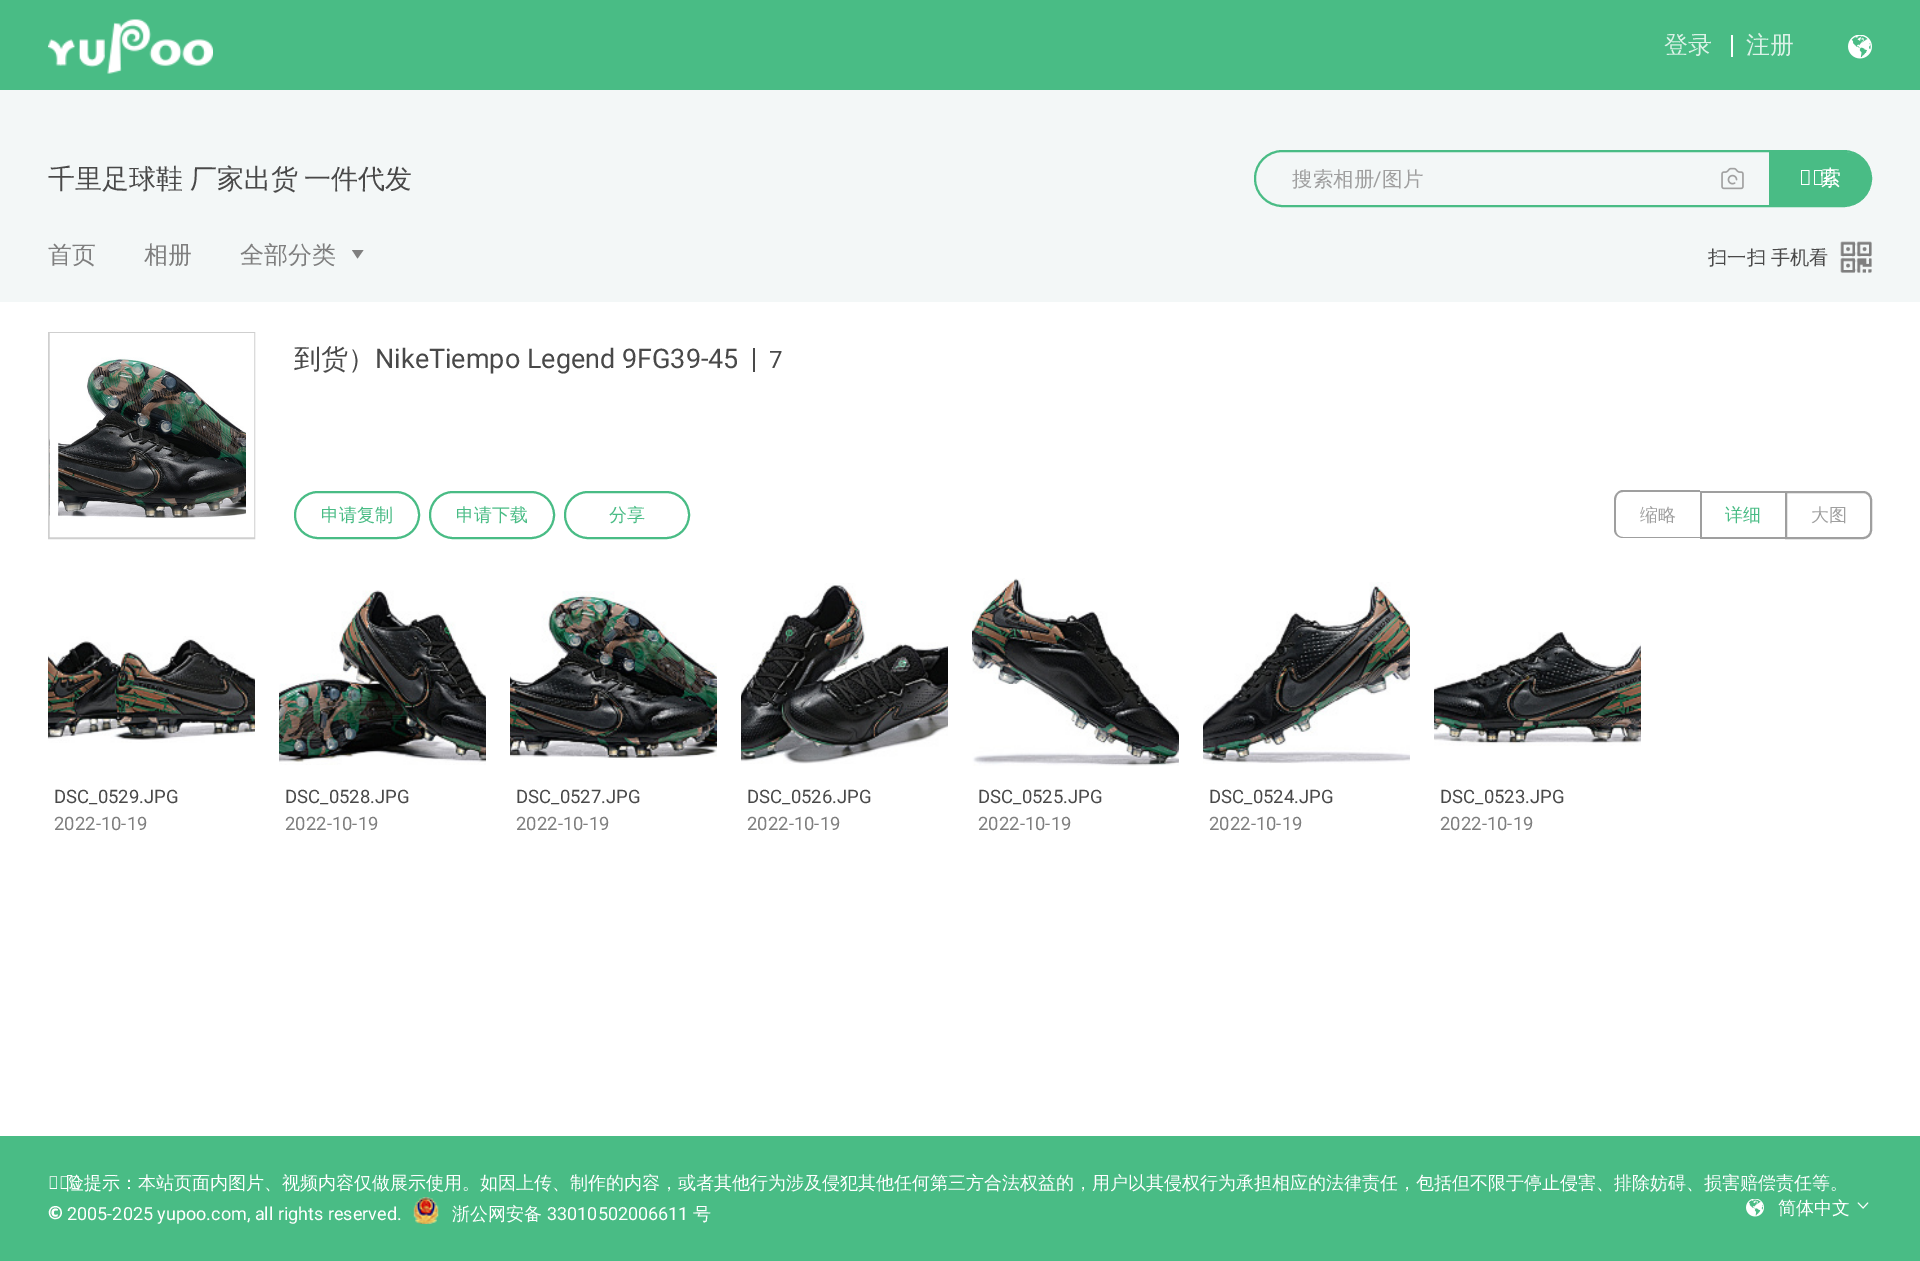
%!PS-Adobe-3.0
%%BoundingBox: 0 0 1920 1261
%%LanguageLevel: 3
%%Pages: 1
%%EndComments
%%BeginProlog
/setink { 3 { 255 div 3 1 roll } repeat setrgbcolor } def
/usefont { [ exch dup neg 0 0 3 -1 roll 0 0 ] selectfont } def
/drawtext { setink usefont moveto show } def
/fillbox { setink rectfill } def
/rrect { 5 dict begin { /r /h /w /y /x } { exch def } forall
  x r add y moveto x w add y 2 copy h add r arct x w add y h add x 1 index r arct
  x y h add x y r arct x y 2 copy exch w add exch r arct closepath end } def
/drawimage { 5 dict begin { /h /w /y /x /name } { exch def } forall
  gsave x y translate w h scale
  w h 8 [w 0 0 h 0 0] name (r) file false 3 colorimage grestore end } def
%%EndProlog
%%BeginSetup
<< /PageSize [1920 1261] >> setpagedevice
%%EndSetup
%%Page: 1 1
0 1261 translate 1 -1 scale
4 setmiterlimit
0 0 1920 1261 255 255 255 fillbox
0 0 1920 90 73 188 133 fillbox
(assets/img1.rgb) 48 19 165 55 drawimage
(登录) 1664 53 /WenQuanYiZenHei-Medium 24 219 242 231 drawtext
1731 35 2 22 255 255 255 fillbox
(注册) 1746 53 /WenQuanYiZenHei-Medium 24 219 242 231 drawtext
(assets/img2.rgb) 1848 35 24 24 drawimage
0 90 1920 212 243 247 247 fillbox
(千里足球鞋) 48 188 /WenQuanYiZenHei-Medium 27 73 73 73 drawtext
(厂家出货) 190 188 /WenQuanYiZenHei-Medium 27 73 73 73 drawtext
(一件代发) 304 188 /WenQuanYiZenHei-Medium 27 73 73 73 drawtext
73 188 133 setink
2 setlinewidth
1255 151 616 55 27.5 rrect stroke
(搜索相册) 1292 186 /WenQuanYiZenHei-Medium 20.5 159 159 159 drawtext
(/) 1373 186 /Roboto-Regular 20.5 159 159 159 drawtext
(图片) 1382 186 /WenQuanYiZenHei-Medium 20.5 159 159 159 drawtext
(assets/img3.rgb) 1721 167 23 23 drawimage
73 188 133 setink
1770 153 moveto 1844 153 lineto 1858.5 153 1870 164.5 1870 179 curveto 1870 193.5 1858.5 205 1844 205 curveto 1770 205 lineto closepath gsave fill grestore
stroke
(搜) 1799 185 /NotoSans-Regular 21 255 255 255 drawtext
(索) 1820 185 /WenQuanYiZenHei-Medium 21 255 255 255 drawtext
(首页) 48 263 /WenQuanYiZenHei-Medium 24 127 127 127 drawtext
(相册) 144 263 /WenQuanYiZenHei-Medium 24 127 127 127 drawtext
(全部分类) 240 263 /WenQuanYiZenHei-Medium 24 127 127 127 drawtext
357.5 258.5 moveto 352 250 lineto 363.5 250 lineto closepath fill
/WenQuanYiZenHei-Medium 19.25 usefont
73 73 73 setink
1708 264 moveto -1 0 32 (扫一扫 手机看) widthshow
(assets/img4.rgb) 1840 241 32 32 drawimage
207 207 207 setink
49 333 205 205 rectstroke
(assets/img5.rgb) 49 333 197 204 drawimage
255 255 255 setink
8 setlinewidth
54 337 196 196 rectstroke
(到货）) 294 368 /WenQuanYiZenHei-Medium 27 73 73 73 drawtext
(NikeTiempo Legend 9FG39-45) 375 368 /Roboto-Regular 27 73 73 73 drawtext
753 348 2 24 73 73 73 fillbox
(7) 769 368 /Roboto-Regular 24 73 73 73 drawtext
73 188 133 setink
2 setlinewidth
295 492 124 46 23 rrect stroke
(申请复制) 321 521 /WenQuanYiZenHei-Medium 18 73 188 133 drawtext
430 492 124 46 23 rrect stroke
(申请下载) 456 521 /WenQuanYiZenHei-Medium 18 73 188 133 drawtext
565 492 124 46 23 rrect stroke
(分享) 609 521 /WenQuanYiZenHei-Medium 18 73 188 133 drawtext
159 159 159 setink
1623 490 moveto 1700 490 lineto 1700 538 lineto 1623 538 lineto 1618 538 1614 534 1614 530 curveto 1614 500 lineto 1614 495 1618 490 1623 490 curveto closepath 1623 492 moveto 1700 492 lineto 1700 537 lineto 1623 537 lineto 1619 537 1616 534 1616 530 curveto 1616 500 lineto 1616 495 1619 492 1623 492 curveto closepath eofill
(缩略) 1640 521 /WenQuanYiZenHei-Medium 18 159 159 159 drawtext
1700 491 85 2 159 159 159 fillbox
1700 537 85 2 159 159 159 fillbox
1700 491 2 48 159 159 159 fillbox
(详细) 1725 521 /WenQuanYiZenHei-Medium 18 73 188 133 drawtext
159 159 159 setink
1786 492 moveto 1863 492 lineto 1867.5 492 1871 495.5 1871 500 curveto 1871 530 lineto 1871 534.5 1867.5 538 1863 538 curveto 1786 538 lineto closepath stroke
(大图) 1811 521 /WenQuanYiZenHei-Medium 18 159 159 159 drawtext
(assets/img6.rgb) 48 636 207 107 drawimage
(DSC_0529.JPG) 54 803 /Roboto-Regular 18.5 73 73 73 drawtext
(2022-10-19) 54 830 /Roboto-Regular 18.5 127 127 127 drawtext
(assets/img7.rgb) 279 590 207 175 drawimage
(DSC_0528.JPG) 285 803 /Roboto-Regular 18.5 73 73 73 drawtext
(2022-10-19) 285 830 /Roboto-Regular 18.5 127 127 127 drawtext
(assets/img8.rgb) 510 591 207 169 drawimage
(DSC_0527.JPG) 516 803 /Roboto-Regular 18.5 73 73 73 drawtext
(2022-10-19) 516 830 /Roboto-Regular 18.5 127 127 127 drawtext
(assets/img9.rgb) 741 583 207 181 drawimage
(DSC_0526.JPG) 747 803 /Roboto-Regular 18.5 73 73 73 drawtext
(2022-10-19) 747 830 /Roboto-Regular 18.5 127 127 127 drawtext
(assets/img10.rgb) 972 578 207 188 drawimage
(DSC_0525.JPG) 978 803 /Roboto-Regular 18.5 73 73 73 drawtext
(2022-10-19) 978 830 /Roboto-Regular 18.5 127 127 127 drawtext
(assets/img11.rgb) 1203 582 207 182 drawimage
(DSC_0524.JPG) 1209 803 /Roboto-Regular 18.5 73 73 73 drawtext
(2022-10-19) 1209 830 /Roboto-Regular 18.5 127 127 127 drawtext
(assets/img12.rgb) 1434 632 207 114 drawimage
(DSC_0523.JPG) 1440 803 /Roboto-Regular 18.5 73 73 73 drawtext
(2022-10-19) 1440 830 /Roboto-Regular 18.5 127 127 127 drawtext
0 1136 1920 125 73 188 133 fillbox
(风) 48 1189 /NotoSans-Regular 18 255 255 255 drawtext
(险提示：本站页面内图片、视频内容仅做展示使用。如因上传、制作的内容，或者其他行为涉及侵犯其他任何第三方合法权益的，用户以其侵权行为承担相应的法律责任，包括但不限于停止侵害、排除妨碍、损害赔偿责任等。) 66 1189 /WenQuanYiZenHei-Medium 18 255 255 255 drawtext
(©) 48 1219 /NotoSans-Black 18 255 255 255 drawtext
(2005-2025 yupoo.com, all rights reserved.) 67 1220 /Roboto-Regular 18 255 255 255 drawtext
(assets/img13.rgb) 413 1197 26 27 drawimage
(浙公网安备) 452 1220 /WenQuanYiZenHei-Medium 18 255 255 255 drawtext
(33010502006611) 547 1220 /Roboto-Regular 18 255 255 255 drawtext
(号) 693 1220 /WenQuanYiZenHei-Medium 18 255 255 255 drawtext
(assets/img14.rgb) 1746 1199 18 18 drawimage
(简体中文) 1778 1214 /WenQuanYiZenHei-Medium 18 255 255 255 drawtext
(assets/img15.rgb) 1857 1202 12 7 drawimage
showpage
%%EOF
